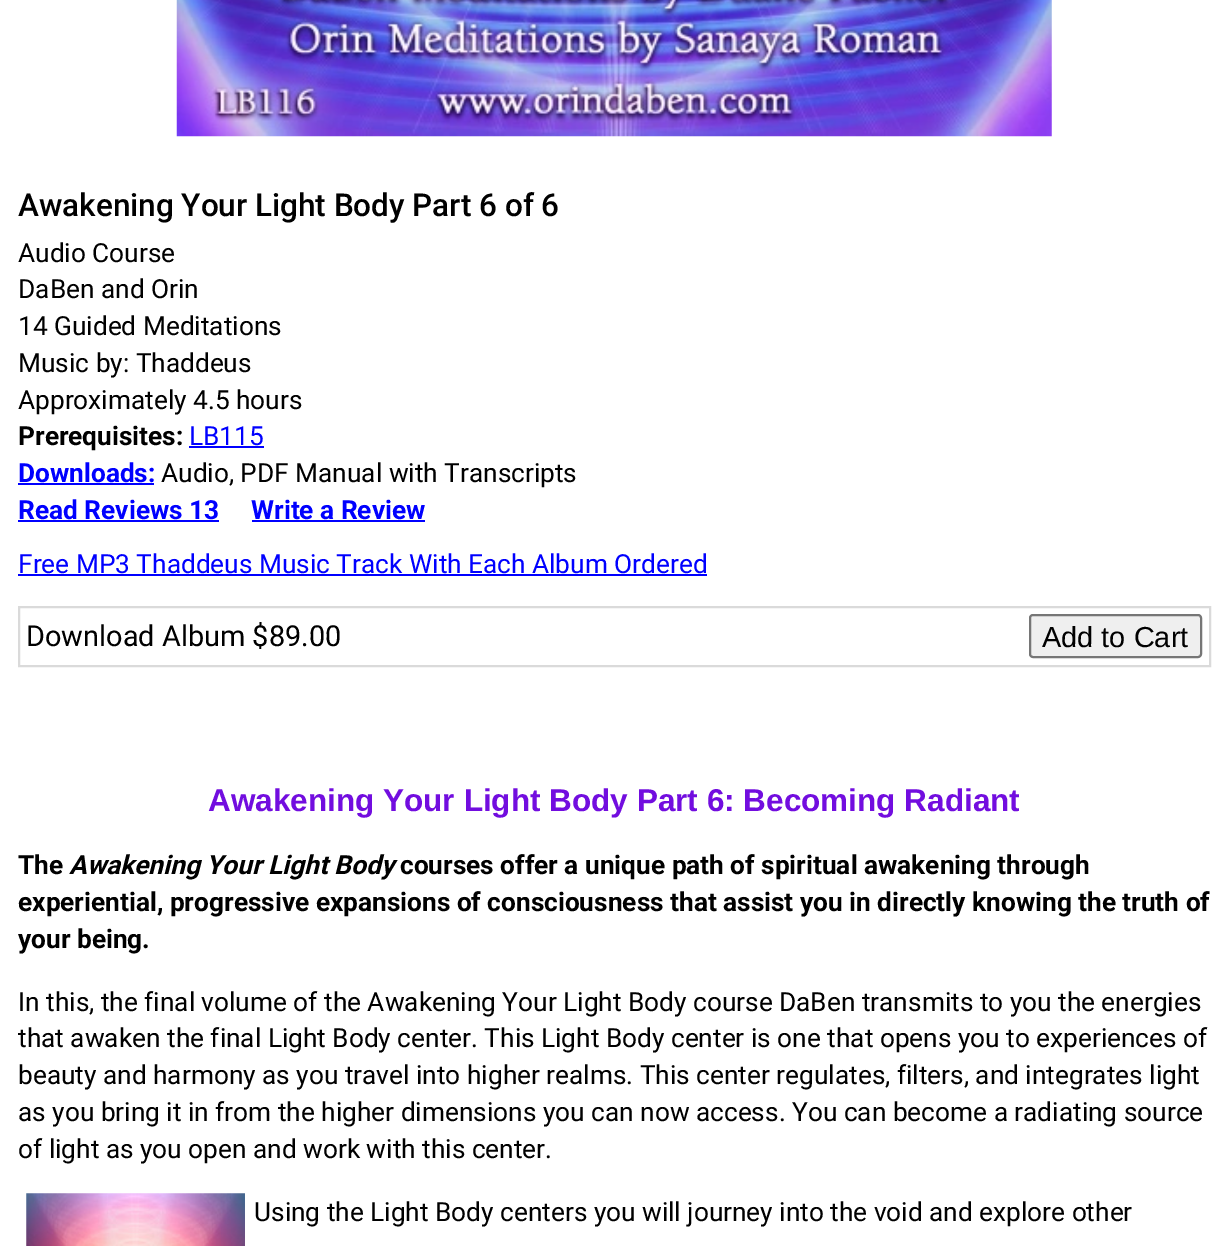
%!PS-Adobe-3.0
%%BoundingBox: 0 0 1227 1246
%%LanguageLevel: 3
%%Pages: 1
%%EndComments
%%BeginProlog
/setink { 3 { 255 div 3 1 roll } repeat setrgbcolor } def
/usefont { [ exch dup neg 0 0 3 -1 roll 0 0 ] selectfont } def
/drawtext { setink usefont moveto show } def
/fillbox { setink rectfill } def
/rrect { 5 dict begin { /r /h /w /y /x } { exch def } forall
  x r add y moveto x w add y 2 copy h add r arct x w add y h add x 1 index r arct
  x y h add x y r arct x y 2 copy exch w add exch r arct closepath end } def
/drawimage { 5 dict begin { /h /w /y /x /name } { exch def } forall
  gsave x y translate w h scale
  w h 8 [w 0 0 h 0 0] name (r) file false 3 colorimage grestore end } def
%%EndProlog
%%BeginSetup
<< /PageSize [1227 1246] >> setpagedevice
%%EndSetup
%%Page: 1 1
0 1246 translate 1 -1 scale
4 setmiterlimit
0 0 1227 1246 255 255 255 fillbox
(assets/img1.rgb) 176 0 876 137 drawimage
(Awakening Your Light Body Part 6 of 6) 18 216 /Roboto-Medium 31.5 0 0 0 drawtext
(Audio Course) 18 262 /Roboto-Regular 26.25 0 0 0 drawtext
(DaBen and Orin) 18 298 /Roboto-Regular 26.25 0 0 0 drawtext
(14 Guided Meditations) 18 335 /Roboto-Regular 26.25 0 0 0 drawtext
(Music by: Thaddeus) 18 372 /Roboto-Regular 26.25 0 0 0 drawtext
(Approximately 4.5 hours) 18 409 /Roboto-Regular 26.25 0 0 0 drawtext
(Prerequisites:) 18 445 /Roboto-Bold 26.25 0 0 0 drawtext
(LB115) 189 445 /Roboto-Regular 26.25 0 0 255 drawtext
189 446 75 2 0 0 255 fillbox
(Downloads:) 18 482 /Roboto-Bold 26.25 0 0 255 drawtext
18 483 136 2 0 0 255 fillbox
(Audio, PDF Manual with Transcripts) 161 482 /Roboto-Regular 26.25 0 0 0 drawtext
(Read Reviews 13) 18 519 /Roboto-Bold 26.25 0 0 255 drawtext
18 520 201 2 0 0 255 fillbox
(Write a Review) 251 519 /Roboto-Bold 26.25 0 0 255 drawtext
252 520 173 2 0 0 255 fillbox
(Free MP3 Thaddeus Music Track With Each Album Ordered) 18 573 /Roboto-Regular 26.25 0 0 255 drawtext
18 574 689 2 0 0 255 fillbox
218 218 218 setink
2 setlinewidth
19 607 1191 59 rectstroke
(Download Album $89.00) 26 646 /Roboto-Regular 28.9 0 0 0 drawtext
239 239 239 setink
1030 615 171 42 3 rrect gsave fill grestore
118 118 118 setink
stroke
(Add to Cart) 1042 647 /LiberationSans-Regular 28.9 0 0 0 drawtext
(Awakening Your Light Body Part 6: Becoming Radiant) 208 811 /LiberationSans-Bold 31.5 114 13 223 drawtext
(The) 18 874 /Roboto-Bold 26.25 0 0 0 drawtext
(Awakening Your Light Body) 69 874 /Roboto-BoldItalic 26.25 0 0 0 drawtext
(courses offer a unique path of spiritual awakening through) 400 874 /Roboto-Bold 26.25 0 0 0 drawtext
(experiential, progressive expansions of consciousness that assist you in directly knowing the truth of) 18 911 /Roboto-Bold 26.25 0 0 0 drawtext
(your being.) 18 948 /Roboto-Bold 26.25 0 0 0 drawtext
(In this, the final volume of the Awakening Your Light Body course DaBen transmits to you the energies) 18 1011 /Roboto-Regular 26.25 0 0 0 drawtext
(that awaken the final Light Body center. This Light Body center is one that opens you to experiences of) 18 1047 /Roboto-Regular 26.25 0 0 0 drawtext
(beauty and harmony as you travel into higher realms. This center regulates, filters, and integrates light) 18 1084 /Roboto-Regular 26.25 0 0 0 drawtext
(as you bring it in from the higher dimensions you can now access. You can become a radiating source) 18 1121 /Roboto-Regular 26.25 0 0 0 drawtext
(of light as you open and work with this center.) 18 1158 /Roboto-Regular 26.25 0 0 0 drawtext
(assets/img2.rgb) 26 1193 219 53 drawimage
(Using the Light Body centers you will journey into the void and explore other) 254 1221 /Roboto-Regular 26.25 0 0 0 drawtext
showpage
%%EOF
